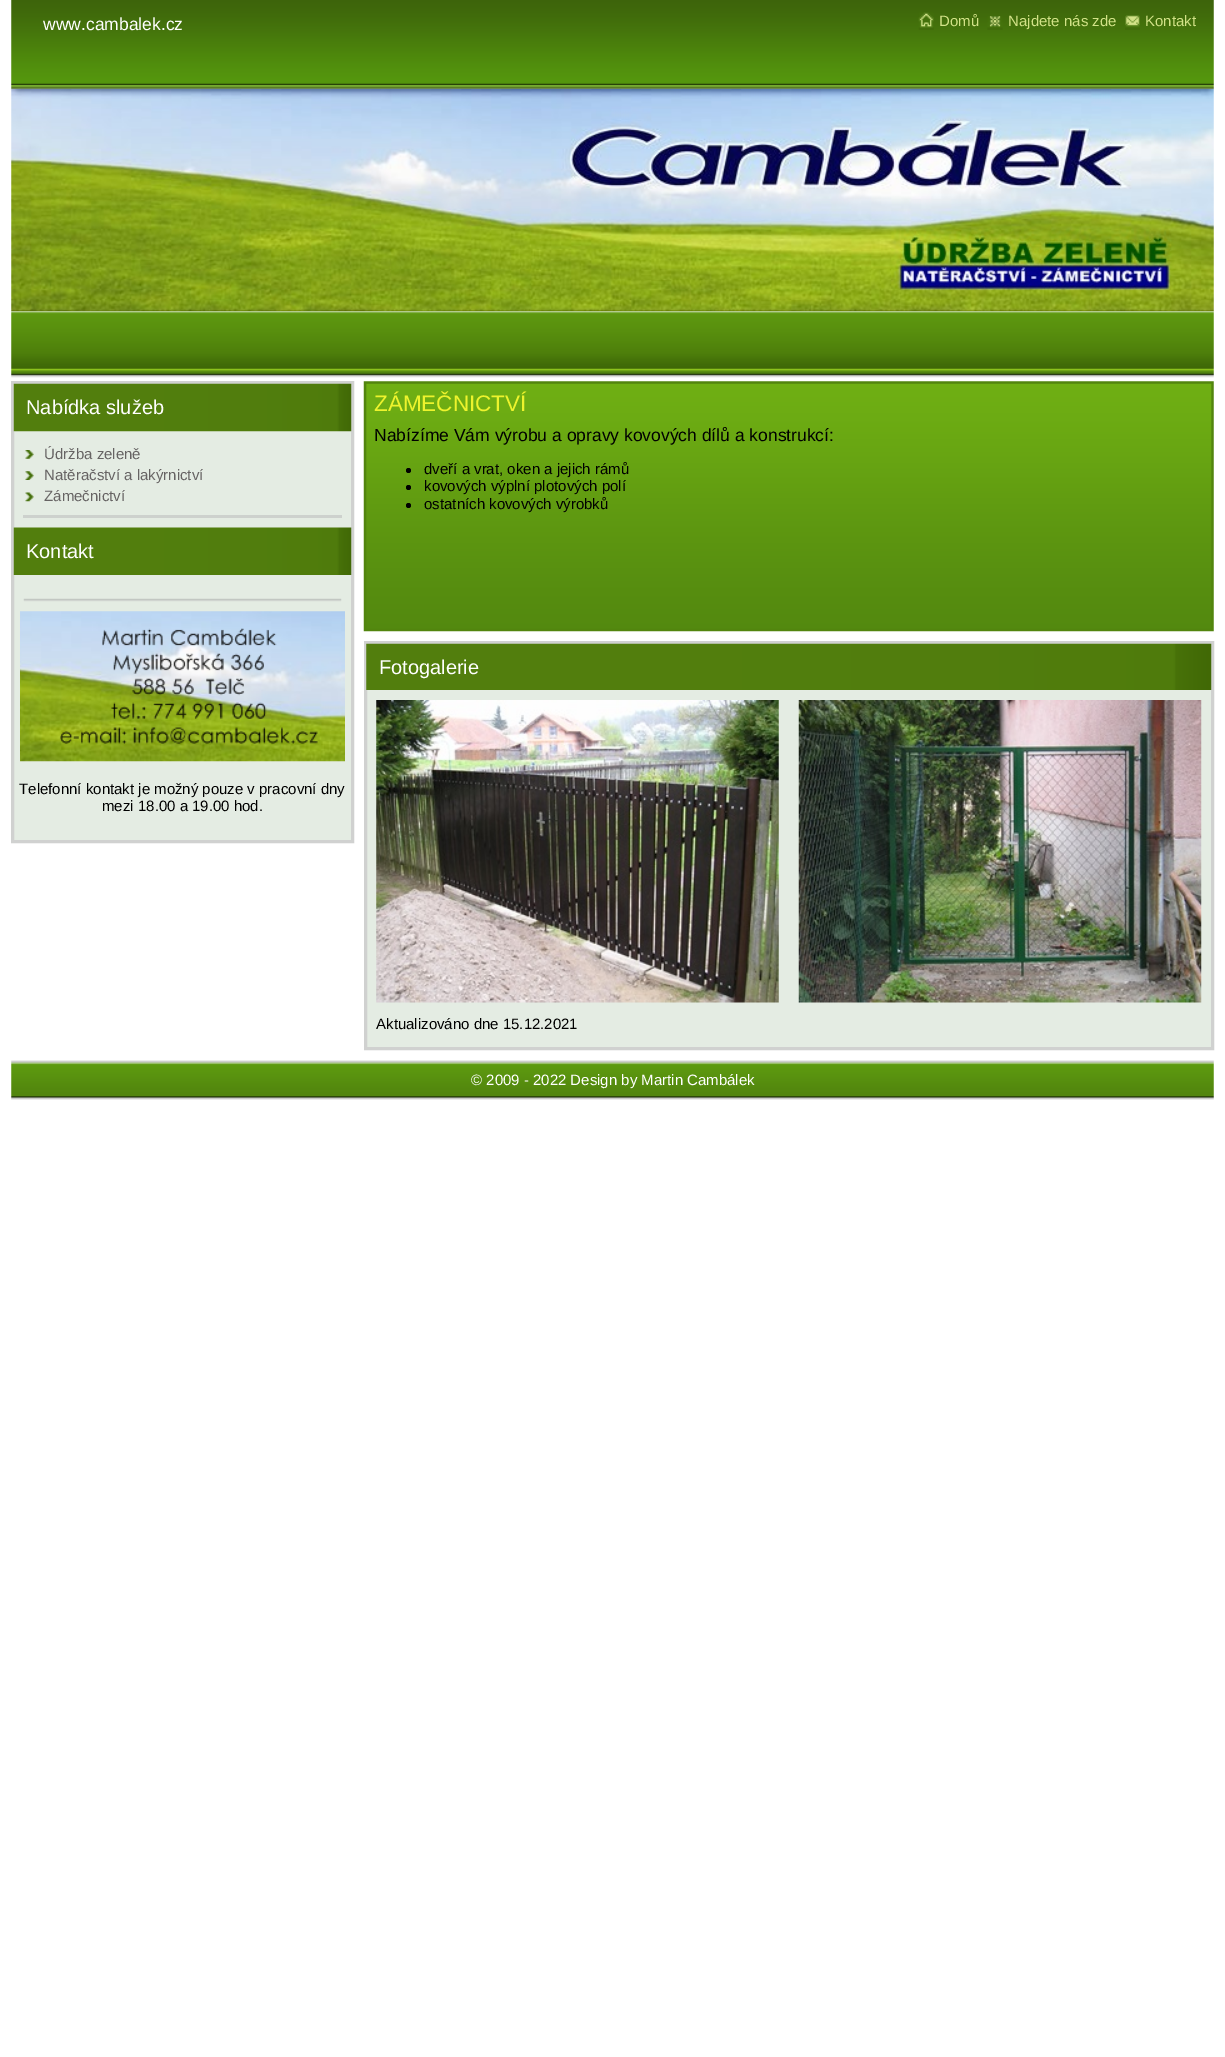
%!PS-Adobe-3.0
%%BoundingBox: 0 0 1225 2057
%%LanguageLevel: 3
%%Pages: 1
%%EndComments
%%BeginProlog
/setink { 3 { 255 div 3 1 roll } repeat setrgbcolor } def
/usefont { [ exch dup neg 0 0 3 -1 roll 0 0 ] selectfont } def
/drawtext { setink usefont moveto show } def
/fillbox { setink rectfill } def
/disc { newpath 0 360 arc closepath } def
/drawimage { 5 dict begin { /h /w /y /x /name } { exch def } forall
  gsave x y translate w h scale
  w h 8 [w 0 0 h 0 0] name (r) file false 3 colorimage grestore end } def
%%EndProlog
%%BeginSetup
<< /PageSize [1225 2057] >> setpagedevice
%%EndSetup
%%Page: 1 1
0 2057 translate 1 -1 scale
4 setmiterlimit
0 0 1225 2057 255 255 255 fillbox
(assets/img1.rgb) 11 88 1203 224 drawimage
(assets/img2.rgb) 11 0 1203 89 drawimage
(www.cambalek.cz) 43 30 /LiberationSans-Regular 17.5 255 255 255 drawtext
(assets/img3.rgb) 918 12 16 18 drawimage
(Domů) 939 26 /LiberationSans-Regular 15 210 226 136 drawtext
(assets/img4.rgb) 987 16 16 14 drawimage
(Najdete nás zde) 1008 26 /LiberationSans-Regular 15 210 226 136 drawtext
(assets/img5.rgb) 1125 15 15 15 drawimage
(Kontakt) 1145 26 /LiberationSans-Regular 15 210 226 136 drawtext
(assets/img6.rgb) 11 311 1203 67 drawimage
14 431 337 409 228 236 227 fillbox
208 209 208 setink
3 setlinewidth
12.5 382.5 340 459 rectstroke
(assets/img7.rgb) 13 383 339 49 drawimage
(Nabídka služeb) 26 414 /LiberationSans-Regular 20 255 255 255 drawtext
23 515 319 3 205 209 205 fillbox
(assets/img8.rgb) 25 450 9 9 drawimage
(Údržba zeleně) 44 459 /LiberationSans-Regular 15 102 99 99 drawtext
(assets/img9.rgb) 25 471 9 9 drawimage
(Natěračství a lakýrnictví) 44 480 /LiberationSans-Regular 15 102 99 99 drawtext
(assets/img10.rgb) 25 492 9 10 drawimage
(Zámečnictví) 44 501 /LiberationSans-Regular 15 102 99 99 drawtext
(assets/img11.rgb) 13 527 339 48 drawimage
(Kontakt) 26 558 /LiberationSans-Regular 20 255 255 255 drawtext
(assets/img12.rgb) 23 598 319 4 drawimage
(assets/img13.rgb) 20 611 325 151 drawimage
(Telefonní kontakt je možný pouze v pracovní dny) 19 794 /LiberationSans-Regular 15 0 0 0 drawtext
(mezi 18.00 a 19.00 hod.) 102 811 /LiberationSans-Regular 15 0 0 0 drawtext
(assets/img14.rgb) 363 381 851 251 drawimage
(ZÁMEČNICTVÍ) 374 411 /LiberationSans-Regular 22.5 237 243 45 drawtext
(Nabízíme Vám výrobu a opravy kovových dílů a konstrukcí:) 374 441 /LiberationSans-Regular 17.5 0 0 0 drawtext
408.5 470.5 2.5 disc fill
(dveří a vrat, oken a jejich rámů) 424 474 /LiberationSans-Regular 15 0 0 0 drawtext
408.5 487.5 2.5 disc fill
(kovových výplní plotových polí) 424 491 /LiberationSans-Regular 15 0 0 0 drawtext
408.5 505.5 2.5 disc fill
(ostatních kovových výrobků) 424 509 /LiberationSans-Regular 15 0 0 0 drawtext
367 690 844 357 228 236 227 fillbox
208 209 208 setink
365.5 642.5 847 406 rectstroke
(assets/img15.rgb) 366 643 846 47 drawimage
(Fotogalerie) 379 674 /LiberationSans-Regular 20 255 255 255 drawtext
(assets/img16.rgb) 376 700 403 303 drawimage
(assets/img17.rgb) 798 700 404 303 drawimage
(Aktualizováno dne 15.12.2021) 376 1029 /LiberationSans-Regular 15 0 0 0 drawtext
(assets/img18.rgb) 11 1060 1203 40 drawimage
(© 2009 - 2022 Design by Martin Cambálek) 471 1085 /LiberationSans-Regular 15 255 255 255 drawtext
showpage
%%EOF
